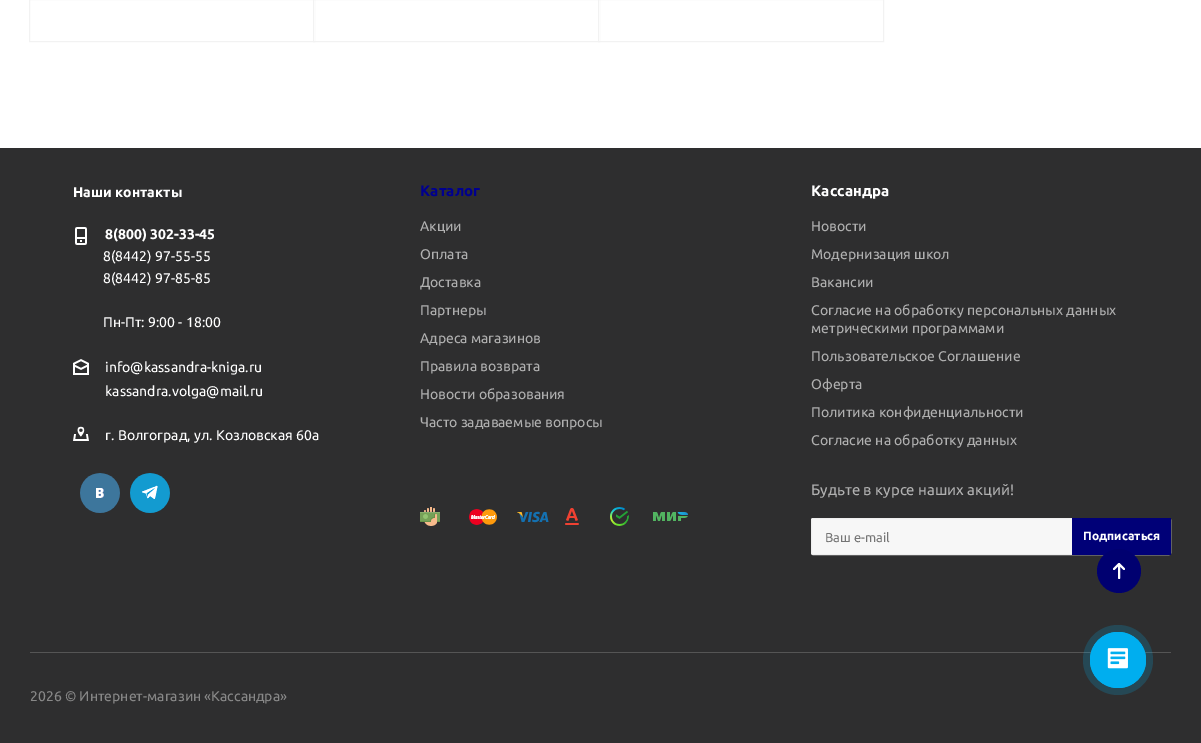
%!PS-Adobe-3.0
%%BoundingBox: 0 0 1201 743
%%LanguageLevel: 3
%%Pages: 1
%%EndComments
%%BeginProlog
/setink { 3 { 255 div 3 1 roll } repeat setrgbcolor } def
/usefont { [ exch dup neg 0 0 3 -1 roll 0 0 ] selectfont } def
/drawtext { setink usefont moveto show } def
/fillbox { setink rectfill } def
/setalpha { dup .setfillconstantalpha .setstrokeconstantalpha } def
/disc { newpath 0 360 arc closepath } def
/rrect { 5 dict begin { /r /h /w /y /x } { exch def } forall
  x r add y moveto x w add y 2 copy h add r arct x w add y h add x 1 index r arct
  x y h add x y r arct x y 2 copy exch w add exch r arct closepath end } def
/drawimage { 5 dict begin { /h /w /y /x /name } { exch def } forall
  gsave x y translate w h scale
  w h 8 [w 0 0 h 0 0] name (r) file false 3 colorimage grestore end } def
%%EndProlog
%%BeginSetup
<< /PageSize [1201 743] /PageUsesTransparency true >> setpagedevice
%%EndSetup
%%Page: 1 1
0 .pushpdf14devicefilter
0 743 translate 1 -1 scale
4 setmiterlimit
0 0 1201 743 255 255 255 fillbox
242 242 242 setink
29.5 -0.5 285 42 rectstroke
314 0 1 41 255 255 255 fillbox
242 242 242 setink
313.5 -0.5 286 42 rectstroke
599 0 1 41 255 255 255 fillbox
242 242 242 setink
598.5 -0.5 285 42 rectstroke
0 148 1201 595 46 46 47 fillbox
(Наши контакты) 73 197 /Ubuntu-Bold 14 255 255 255 drawtext
(assets/img1.rgb) 75 227 12 18 drawimage
(8\(800\) 302-33-45) 105 239 /Ubuntu-Bold 14 255 255 255 drawtext
(8\(8442\) 97-55-55) 103 261 /Ubuntu-Regular 14 255 255 255 drawtext
(8\(8442\) 97-85-85) 103 283 /Ubuntu-Regular 14 255 255 255 drawtext
(Пн-Пт: 9:00 - 18:00) 103 327 /Ubuntu-Regular 14 255 255 255 drawtext
(assets/img2.rgb) 73 359 16 16 drawimage
(info@kassandra-kniga.ru) 105 372 /Ubuntu-Regular 14 255 255 255 drawtext
(kassandra.volga@mail.ru) 105 396 /Ubuntu-Regular 14 255 255 255 drawtext
(assets/img3.rgb) 73 426 16 15 drawimage
(г. Волгоград, ул. Козловская 60а) 105 440 /Ubuntu-Regular 14 255 255 255 drawtext
(assets/img4.rgb) 80 473 40 40 drawimage
(assets/img5.rgb) 130 473 40 40 drawimage
(Каталог) 420 196 /Ubuntu-Bold 15 0 0 143 drawtext
(Акции) 420 231 /Ubuntu-Regular 14 176 176 176 drawtext
(Оплата) 420 259 /Ubuntu-Regular 14 176 176 176 drawtext
(Доставка) 420 287 /Ubuntu-Regular 14 176 176 176 drawtext
(Партнеры) 420 315 /Ubuntu-Regular 14 176 176 176 drawtext
(Адреса магазинов) 420 343 /Ubuntu-Regular 14 176 176 176 drawtext
(Правила возврата) 420 371 /Ubuntu-Regular 14 176 176 176 drawtext
(Новости образования) 420 399 /Ubuntu-Regular 14 176 176 176 drawtext
(Часто задаваемые вопросы) 420 427 /Ubuntu-Regular 14 176 176 176 drawtext
(assets/img6.rgb) 420 507 20 19 drawimage
(assets/img7.rgb) 469 509 28 16 drawimage
(assets/img8.rgb) 517 511 32 12 drawimage
(assets/img9.rgb) 565 508 14 17 drawimage
(assets/img10.rgb) 610 507 19 19 drawimage
(assets/img11.rgb) 653 512 35 9 drawimage
(Кассандра) 811 196 /Ubuntu-Bold 15 255 255 255 drawtext
(Новости) 811 231 /Ubuntu-Regular 14 176 176 176 drawtext
(Модернизация школ) 811 259 /Ubuntu-Regular 14 176 176 176 drawtext
(Вакансии) 811 287 /Ubuntu-Regular 14 176 176 176 drawtext
(Согласие на обработку персональных данных) 811 315 /Ubuntu-Regular 14 176 176 176 drawtext
(метрическими программами) 811 333 /Ubuntu-Regular 14 176 176 176 drawtext
(Пользовательское Соглашение) 811 361 /Ubuntu-Regular 14 176 176 176 drawtext
(Оферта) 811 389 /Ubuntu-Regular 14 176 176 176 drawtext
(Политика конфиденциальности) 811 417 /Ubuntu-Regular 14 176 176 176 drawtext
(Согласие на обработку данных) 811 445 /Ubuntu-Regular 14 176 176 176 drawtext
(Будьте в курсе наших акций!) 811 495 /Ubuntu-Regular 15 176 176 176 drawtext
247 247 247 setink
811.5 518.5 359 36 1.5 rrect gsave fill grestore
238 238 238 setink
stroke
(Ваш e-mail) 825 542 /Ubuntu-Regular 13 117 117 117 drawtext
1072 518 99 37 0 0 119 fillbox
(Подписаться) 1083 540 /Ubuntu-Bold 12 255 255 255 drawtext
30 652 1141 1 85 85 85 fillbox
(2026 © Интернет-магазин «Кассандра») 30 701 /Ubuntu-Regular 14 136 136 136 drawtext
0 0 112 setink
1119 571 22 disc fill
255 255 255 setink
2 setlinewidth
1 setlinecap
1 setlinejoin
1119 564 moveto 1119 578 lineto 1114 569 moveto 1119 564 lineto 1124 569 lineto stroke
0.2 setalpha
0 174 239 setink
1118 660 35 disc fill
1 setalpha
0.8 setlinewidth
0 setlinecap
0 setlinejoin
1118 660 27.6 disc stroke
1118 660 28 disc fill
(assets/img12.rgb) 1107 648 21 21 drawimage
.poppdf14devicefilter showpage
%%EOF
